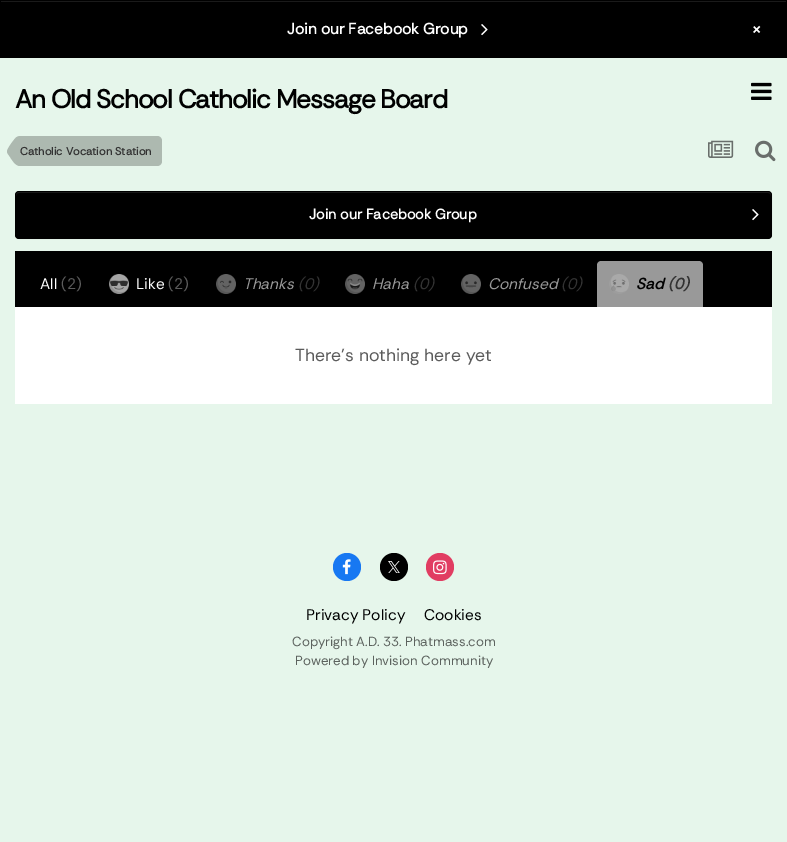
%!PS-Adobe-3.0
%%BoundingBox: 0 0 787 842
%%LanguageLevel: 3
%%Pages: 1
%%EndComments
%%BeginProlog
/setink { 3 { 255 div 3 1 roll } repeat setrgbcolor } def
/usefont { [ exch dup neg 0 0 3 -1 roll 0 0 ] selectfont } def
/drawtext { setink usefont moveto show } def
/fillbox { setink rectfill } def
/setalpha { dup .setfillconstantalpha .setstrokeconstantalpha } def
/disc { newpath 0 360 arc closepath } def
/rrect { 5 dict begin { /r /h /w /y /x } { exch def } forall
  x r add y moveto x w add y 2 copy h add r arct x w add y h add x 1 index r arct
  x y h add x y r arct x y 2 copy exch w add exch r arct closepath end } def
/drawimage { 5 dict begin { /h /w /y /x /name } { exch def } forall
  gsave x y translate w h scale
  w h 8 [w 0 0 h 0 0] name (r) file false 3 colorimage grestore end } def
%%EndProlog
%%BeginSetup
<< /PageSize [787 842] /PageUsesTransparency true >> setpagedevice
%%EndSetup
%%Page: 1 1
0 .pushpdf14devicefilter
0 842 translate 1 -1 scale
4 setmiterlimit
0 0 787 842 230 246 235 fillbox
0 0 787 58 0 0 0 fillbox
1 1 785 1 26 26 26 fillbox
(Join our Facebook Group) 287 34 /RethinkSans-Bold 15.4 255 255 255 drawtext
(assets/img1.rgb) 481 24 7 12 drawimage
(×) 751 35 /RethinkSans-Bold 18 255 255 255 drawtext
/RethinkSans-Bold 26 usefont
0 0 0 setink
15 108 moveto -1.05 0 (An Old School Catholic Message Board) ashow
(assets/img2.rgb) 751 82 21 18 drawimage
173 185 176 setink
20 136 moveto 157 136 lineto 160 136 162 138 162 141 curveto 162 161 lineto 162 164 160 166 157 166 curveto 20 166 lineto closepath fill
9 155.5 moveto 8 154 7 153 7 151 curveto 20 151 lineto 20 166 lineto 15 166 11.5 159 9 155.5 curveto closepath 20 136 moveto 20 151 lineto 7 151 lineto 7.5 149.5 lineto 9 146.5 13.5 140 16 137.5 curveto 17 137 18.5 136 20 136 curveto closepath fill
(Catholic Vocation Station) 20 155 /RethinkSans-Bold 11 51 51 51 drawtext
(assets/img3.rgb) 708 140 26 18 drawimage
(assets/img4.rgb) 755 140 21 22 drawimage
0 0 0 setink
15 191 757 48 4 rrect fill
26 26 26 setink
19 193 moveto 768 193 lineto 770 193 771 194 771 196 curveto 771 194 770 192 768 192 curveto 19 192 lineto 17 192 16 194 16 196 curveto 16 194 17 193 19 193 curveto closepath fill
0.1 setalpha
0 0 0 setink
15.5 191.5 756 47 3.5 rrect stroke
1 setalpha
(Join our Facebook Group) 309 219 /RethinkSans-Bold 14.25 255 255 255 drawtext
(assets/img1.rgb) 752 209 7 12 drawimage
15 251 757 56 0 0 0 fillbox
(All) 40 289 /RethinkSans-Thin 15.4 255 255 255 drawtext
(\(2\)) 61 289 /RethinkSans-Thin 15.4 91 91 91 drawtext
(assets/img5.rgb) 109 274 20 20 drawimage
(Like) 136 289 /RethinkSans-Thin 15.4 255 255 255 drawtext
(\(2\)) 168 289 /RethinkSans-Thin 15.4 91 91 91 drawtext
(assets/img6.rgb) 216 274 20 20 drawimage
(Thanks) 243 289 /RethinkSans-ThinItalic 15.4 153 153 153 drawtext
(\(0\)) 298 289 /RethinkSans-ThinItalic 15.4 51 51 51 drawtext
(assets/img7.rgb) 345 274 20 20 drawimage
(Haha) 372 289 /RethinkSans-ThinItalic 15.4 153 153 153 drawtext
(\(0\)) 413 289 /RethinkSans-ThinItalic 15.4 51 51 51 drawtext
(assets/img8.rgb) 461 274 20 20 drawimage
(Confused) 488 289 /RethinkSans-ThinItalic 15.4 153 153 153 drawtext
(\(0\)) 561 289 /RethinkSans-ThinItalic 15.4 51 51 51 drawtext
153 153 153 setink
601 261 moveto 699 261 lineto 701 261 703 263 703 265 curveto 703 307 lineto 597 307 lineto 597 265 lineto 597 263 599 261 601 261 curveto closepath fill
(assets/img9.rgb) 609 274 20 20 drawimage
(Sad) 636 289 /RethinkSans-BoldItalic 15.4 0 0 0 drawtext
(\(0\)) 668 289 /RethinkSans-BoldItalic 15.4 51 51 51 drawtext
15 307 757 97 255 255 255 fillbox
(There's nothing here yet) 295 361 /RethinkSans-Thin 17.6 91 91 91 drawtext
23 120 242 setink
347 567 14 disc fill
(assets/img10.rgb) 342 559 9 16 drawimage
0 0 0 setink
394 567 14 disc fill
(assets/img11.rgb) 388 561 12 12 drawimage
225 61 98 setink
440 567 14 disc fill
(assets/img12.rgb) 433 560 14 15 drawimage
(Privacy Policy) 306 620 /RethinkSans-Thin 15.4 0 0 0 drawtext
(Cookies) 424 620 /RethinkSans-Thin 15.4 0 0 0 drawtext
(Copyright A.D. 33. Phatmass.com) 292 646 /RethinkSans-Thin 13.25 92 98 94 drawtext
(Powered by Invision Community) 295 665 /RethinkSans-Thin 13.25 92 98 94 drawtext
.poppdf14devicefilter showpage
%%EOF
